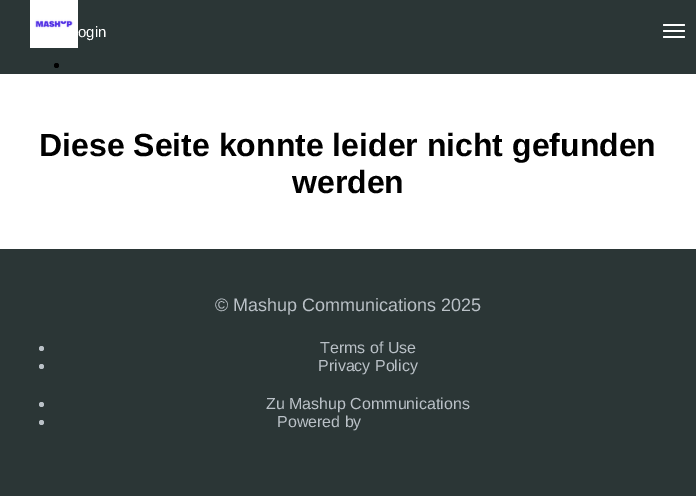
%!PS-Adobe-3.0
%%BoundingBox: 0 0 696 496
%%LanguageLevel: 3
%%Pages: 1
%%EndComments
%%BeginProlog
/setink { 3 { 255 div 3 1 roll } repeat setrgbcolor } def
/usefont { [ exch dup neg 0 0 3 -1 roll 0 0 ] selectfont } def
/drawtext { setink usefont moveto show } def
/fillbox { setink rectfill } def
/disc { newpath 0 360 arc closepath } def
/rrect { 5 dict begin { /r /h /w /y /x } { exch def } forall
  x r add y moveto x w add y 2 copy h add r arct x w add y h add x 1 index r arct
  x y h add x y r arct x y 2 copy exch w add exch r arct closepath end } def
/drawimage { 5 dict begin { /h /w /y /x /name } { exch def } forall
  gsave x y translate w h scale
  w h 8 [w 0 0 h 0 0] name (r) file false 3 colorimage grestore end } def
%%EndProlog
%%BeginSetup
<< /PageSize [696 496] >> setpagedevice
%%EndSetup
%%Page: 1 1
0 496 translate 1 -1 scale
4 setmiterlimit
0 0 696 496 255 255 255 fillbox
0 0 696 74 43 54 54 fillbox
(assets/img1.rgb) 30 0 48 48 drawimage
(ogin) 78 37 /LiberationSans-Regular 15 255 255 255 drawtext
0 0 0 setink
56.5 65.5 2.5 disc fill
255 255 255 setink
663 24 22 2 1 rrect fill
663 30 22 2 1 rrect fill
663 36 22 2 1 rrect fill
(Diese Seite konnte leider nicht gefunden) 39 156 /LiberationSans-Bold 32 0 0 0 drawtext
(werden) 292 193 /LiberationSans-Bold 32 0 0 0 drawtext
0 249 696 247 43 54 54 fillbox
(© Mashup Communications 2025) 215 311 /LiberationSans-Regular 18 186 193 199 drawtext
41.5 348.5 2.5 disc fill
(Terms of Use) 320 353 /LiberationSans-Regular 16 186 193 199 drawtext
41.5 366.5 2.5 disc fill
(Privacy Policy) 318 371 /LiberationSans-Regular 16 186 193 199 drawtext
41.5 404.5 2.5 disc fill
(Zu Mashup Communications) 266 409 /LiberationSans-Regular 16 186 193 199 drawtext
41.5 422.5 2.5 disc fill
(Powered by) 277 427 /LiberationSans-Regular 16 186 193 199 drawtext
showpage
%%EOF
